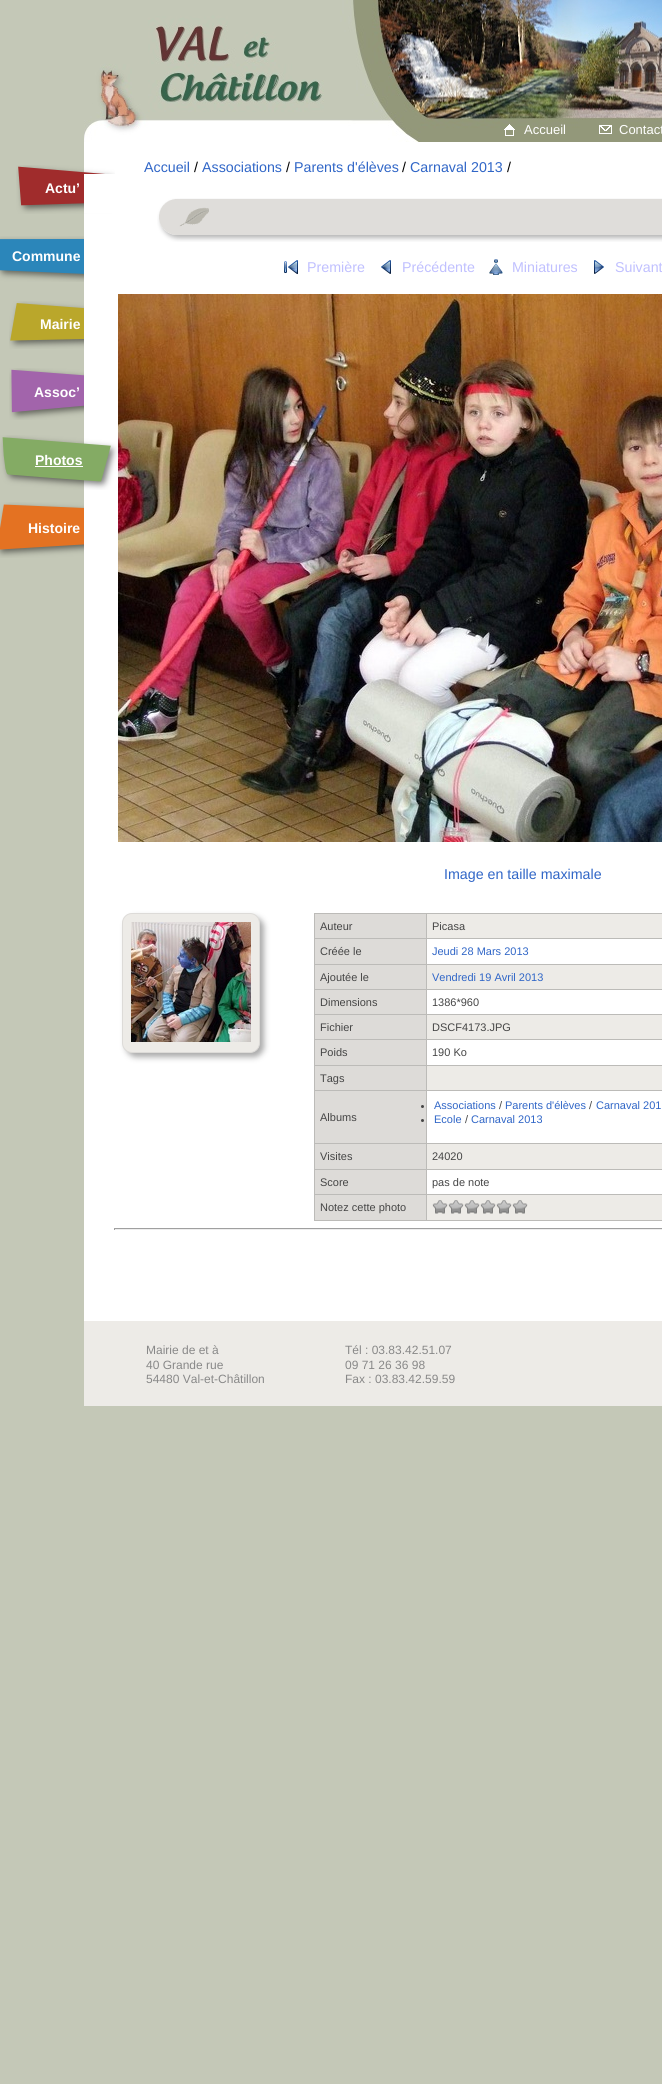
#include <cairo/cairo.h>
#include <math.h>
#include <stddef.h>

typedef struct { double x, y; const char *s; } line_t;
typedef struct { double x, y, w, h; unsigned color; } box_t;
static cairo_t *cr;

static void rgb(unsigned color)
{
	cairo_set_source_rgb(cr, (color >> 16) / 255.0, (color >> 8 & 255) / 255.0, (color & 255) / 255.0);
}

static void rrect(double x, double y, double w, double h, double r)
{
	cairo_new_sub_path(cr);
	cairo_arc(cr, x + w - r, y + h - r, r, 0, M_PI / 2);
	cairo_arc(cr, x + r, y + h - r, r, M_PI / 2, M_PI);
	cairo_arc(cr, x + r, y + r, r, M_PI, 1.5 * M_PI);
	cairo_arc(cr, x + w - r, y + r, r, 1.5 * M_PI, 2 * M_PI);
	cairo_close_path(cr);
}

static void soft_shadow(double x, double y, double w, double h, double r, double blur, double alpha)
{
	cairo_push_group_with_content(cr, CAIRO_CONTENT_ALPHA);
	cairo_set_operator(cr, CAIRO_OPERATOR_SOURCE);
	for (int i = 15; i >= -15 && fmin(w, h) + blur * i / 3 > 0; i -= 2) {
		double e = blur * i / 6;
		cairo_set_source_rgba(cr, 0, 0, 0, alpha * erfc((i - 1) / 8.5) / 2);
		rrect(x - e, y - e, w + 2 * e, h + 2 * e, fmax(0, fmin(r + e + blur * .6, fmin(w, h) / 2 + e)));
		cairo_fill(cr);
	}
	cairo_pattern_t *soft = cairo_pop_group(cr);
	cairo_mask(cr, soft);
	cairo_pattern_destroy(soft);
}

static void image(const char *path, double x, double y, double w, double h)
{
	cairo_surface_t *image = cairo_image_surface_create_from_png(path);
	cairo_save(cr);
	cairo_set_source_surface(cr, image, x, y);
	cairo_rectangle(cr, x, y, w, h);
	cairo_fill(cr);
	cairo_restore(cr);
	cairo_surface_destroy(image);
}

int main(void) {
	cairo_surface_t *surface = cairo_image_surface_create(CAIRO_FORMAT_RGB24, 662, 2084);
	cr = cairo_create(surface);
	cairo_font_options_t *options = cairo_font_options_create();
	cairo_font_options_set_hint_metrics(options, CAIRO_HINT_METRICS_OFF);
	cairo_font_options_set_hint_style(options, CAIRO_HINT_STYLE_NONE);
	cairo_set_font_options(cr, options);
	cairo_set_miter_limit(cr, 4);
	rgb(0xc4c8b7);
	cairo_paint(cr);
	rgb(0xffffff);
	cairo_rectangle(cr, 84, 142, 578, 1179);
	cairo_fill(cr);
	image("img/1.png", 84, 0, 578, 142);
	image("img/2.png", 504, 124, 11, 12);
	image("img/3.png", 599, 125, 13, 9);
	image("img/4.png", 16, 165, 99, 49);
	image("img/5.png", 0, 236, 84, 46);
	image("img/6.png", 9, 301, 75, 48);
	image("img/7.png", 9, 368, 75, 52);
	image("img/8.png", 0, 435, 118, 55);
	cairo_rectangle(cr, 35, 466, 48, 1);
	cairo_fill(cr);
	image("img/9.png", 0, 502, 84, 56);
	cairo_rectangle(cr, 84, 174, 31, 39);
	cairo_fill(cr);
	image("img/10.png", 157, 198, 505, 44);
	image("img/11.png", 284, 260, 14, 15);
	image("img/12.png", 381, 260, 10, 14);
	image("img/13.png", 489, 259, 14, 16);
	image("img/14.png", 594, 260, 10, 14);
	image("img/15.png", 118, 294, 544, 548);
	rgb(0xaaaaaa);
	soft_shadow(126, 917, 138, 140, 10, 3, 1);
	rgb(0xedebe7);
	rrect(122.5, 913.5, 137, 139, 9.5);
	cairo_fill_preserve(cr);
	rgb(0xdddbd8);
	cairo_set_line_width(cr, 1);
	cairo_stroke(cr);
	image("img/16.png", 131, 922, 120, 120);
	{
		static const box_t items[] = {
			{427, 914, 235, 24, 0xedebe7},
			{315, 914, 111, 24, 0xdddbd8},
			{426, 913, 236, 1, 0xbcbbb8},
			{426, 938, 236, 1, 0xbcbbb8},
			{426, 964, 236, 1, 0xbcbbb8},
			{426, 989, 236, 1, 0xbcbbb8},
			{426, 1014, 236, 1, 0xbcbbb8},
			{426, 1039, 236, 1, 0xbcbbb8},
			{426, 1065, 236, 1, 0xbcbbb8},
			{426, 1090, 236, 1, 0xbcbbb8},
			{426, 1143, 236, 1, 0xbcbbb8},
			{426, 1169, 236, 1, 0xbcbbb8},
			{426, 1194, 236, 1, 0xbcbbb8},
			{426, 1220, 236, 1, 0xbcbbb8},
			{426, 1194, 1, 27, 0xbcbbb8},
			{314, 1194, 113, 1, 0xbcbbb8},
			{426, 1169, 1, 26, 0xbcbbb8},
			{314, 1169, 113, 1, 0xbcbbb8},
			{426, 1143, 1, 27, 0xbcbbb8},
			{314, 1143, 113, 1, 0xbcbbb8},
			{426, 1090, 1, 54, 0xbcbbb8},
			{314, 1090, 113, 1, 0xbcbbb8},
			{426, 1065, 1, 26, 0xbcbbb8},
			{314, 1065, 113, 1, 0xbcbbb8},
			{426, 1039, 1, 27, 0xbcbbb8},
			{314, 1039, 113, 1, 0xbcbbb8},
			{426, 1014, 1, 26, 0xbcbbb8},
			{314, 1014, 113, 1, 0xbcbbb8},
			{426, 989, 1, 26, 0xbcbbb8},
			{314, 989, 113, 1, 0xbcbbb8},
			{426, 964, 1, 26, 0xbcbbb8},
			{314, 964, 113, 1, 0xbcbbb8},
			{426, 938, 1, 27, 0xbcbbb8},
			{314, 938, 113, 1, 0xbcbbb8},
			{426, 913, 1, 26, 0xbcbbb8},
			{314, 913, 113, 1, 0xbcbbb8},
			{314, 1220, 113, 1, 0xbcbbb8},
			{314, 1194, 1, 27, 0xbcbbb8},
			{314, 1169, 1, 26, 0xbcbbb8},
			{314, 1143, 1, 27, 0xbcbbb8},
			{314, 1090, 1, 54, 0xbcbbb8},
			{314, 1065, 1, 26, 0xbcbbb8},
			{314, 1039, 1, 27, 0xbcbbb8},
			{314, 1014, 1, 26, 0xbcbbb8},
			{314, 989, 1, 26, 0xbcbbb8},
			{314, 964, 1, 26, 0xbcbbb8},
			{314, 938, 1, 27, 0xbcbbb8},
			{314, 913, 1, 26, 0xbcbbb8},
			{315, 939, 111, 25, 0xdddbd8},
			{427, 965, 235, 24, 0xedebe7},
			{315, 965, 111, 24, 0xdddbd8},
			{315, 990, 111, 24, 0xdddbd8},
			{427, 1015, 235, 24, 0xedebe7},
			{315, 1015, 111, 24, 0xdddbd8},
			{315, 1040, 111, 25, 0xdddbd8},
			{427, 1066, 235, 24, 0xedebe7},
			{315, 1066, 111, 24, 0xdddbd8},
			{315, 1091, 111, 52, 0xdddbd8},
		};
		for (size_t i = 0; i < sizeof items / sizeof *items; i++) {
			rgb(items[i].color);
			cairo_rectangle(cr, items[i].x, items[i].y, items[i].w, items[i].h);
			cairo_fill(cr);
		}
	}
	rgb(0x454545);
	cairo_arc(cr, 422.5, 1106.5, 1.5, 0, 2 * M_PI);
	cairo_fill(cr);
	cairo_arc(cr, 422.5, 1120.5, 1.5, 0, 2 * M_PI);
	cairo_fill(cr);
	{
		static const box_t items[] = {
			{427, 1144, 235, 25, 0xedebe7},
			{315, 1144, 111, 25, 0xdddbd8},
			{315, 1170, 111, 24, 0xdddbd8},
			{427, 1195, 235, 25, 0xedebe7},
			{315, 1195, 111, 25, 0xdddbd8},
		};
		for (size_t i = 0; i < sizeof items / sizeof *items; i++) {
			rgb(items[i].color);
			cairo_rectangle(cr, items[i].x, items[i].y, items[i].w, items[i].h);
			cairo_fill(cr);
		}
	}
	image("img/17.png", 432, 1200, 16, 14);
	image("img/17.png", 448, 1200, 16, 14);
	image("img/17.png", 464, 1200, 16, 14);
	image("img/17.png", 480, 1200, 16, 14);
	image("img/17.png", 496, 1200, 16, 14);
	image("img/17.png", 512, 1200, 16, 14);
	{
		static const box_t items[] = {
			{114, 1228, 548, 1, 0x9f9f9f},
			{114, 1229, 548, 1, 0xeeeeee},
			{114, 1228, 1, 2, 0x9f9f9f},
			{84, 1321, 578, 85, 0xedebe7},
		};
		for (size_t i = 0; i < sizeof items / sizeof *items; i++) {
			rgb(items[i].color);
			cairo_rectangle(cr, items[i].x, items[i].y, items[i].w, items[i].h);
			cairo_fill(cr);
		}
	}
	cairo_select_font_face(cr, "Liberation Sans", CAIRO_FONT_SLANT_NORMAL, CAIRO_FONT_WEIGHT_NORMAL);
	cairo_set_font_size(cr, 13);
	rgb(0xffffff);
	cairo_move_to(cr, 524, 134);
	cairo_show_text(cr, "Accueil");
	cairo_move_to(cr, 619, 134);
	cairo_show_text(cr, "Contact");
	cairo_set_font_size(cr, 14.25);
	rgb(0x3066c7);
	cairo_move_to(cr, 144, 172);
	cairo_show_text(cr, "Accueil");
	rgb(0x000000);
	cairo_move_to(cr, 194, 172);
	cairo_show_text(cr, "/");
	rgb(0x3066c7);
	cairo_move_to(cr, 202, 172);
	cairo_show_text(cr, "Associations");
	rgb(0x000000);
	cairo_move_to(cr, 286, 172);
	cairo_show_text(cr, "/");
	rgb(0x3066c7);
	cairo_move_to(cr, 294, 172);
	cairo_show_text(cr, "Parents d'élèves");
	rgb(0x000000);
	cairo_move_to(cr, 402, 172);
	cairo_show_text(cr, "/");
	rgb(0x3066c7);
	cairo_move_to(cr, 410, 172);
	cairo_show_text(cr, "Carnaval 2013");
	rgb(0x000000);
	cairo_move_to(cr, 507, 172);
	cairo_show_text(cr, "/");
	cairo_select_font_face(cr, "Liberation Sans", CAIRO_FONT_SLANT_NORMAL, CAIRO_FONT_WEIGHT_BOLD);
	cairo_set_font_size(cr, 14);
	rgb(0xffffff);
	{
		static const line_t items[] = {
			{45, 193, "Actu’"},
			{12, 261, "Commune"},
			{40, 329, "Mairie"},
			{34, 397, "Assoc’"},
			{35, 465, "Photos"},
			{28, 533, "Histoire"},
		};
		for (size_t i = 0; i < sizeof items / sizeof *items; i++) {
			cairo_move_to(cr, items[i].x, items[i].y);
			cairo_show_text(cr, items[i].s);
		}
	}
	cairo_select_font_face(cr, "Liberation Sans", CAIRO_FONT_SLANT_NORMAL, CAIRO_FONT_WEIGHT_NORMAL);
	cairo_set_font_size(cr, 14.25);
	rgb(0xc0c0ff);
	{
		static const line_t items[] = {
			{307, 272, "Première"},
			{402, 272, "Précédente"},
			{512, 272, "Miniatures"},
			{615, 272, "Suivant"},
		};
		for (size_t i = 0; i < sizeof items / sizeof *items; i++) {
			cairo_move_to(cr, items[i].x, items[i].y);
			cairo_show_text(cr, items[i].s);
		}
	}
	rgb(0x3066c7);
	cairo_move_to(cr, 444, 879);
	cairo_show_text(cr, "Image en taille maximale");
	cairo_set_font_size(cr, 11);
	rgb(0x454545);
	{
		static const line_t items[] = {
			{320, 930, "Auteur"},
			{432, 930, "Picasa"},
			{320, 955, "Créée le"},
		};
		for (size_t i = 0; i < sizeof items / sizeof *items; i++) {
			cairo_move_to(cr, items[i].x, items[i].y);
			cairo_show_text(cr, items[i].s);
		}
	}
	rgb(0x3066c7);
	cairo_move_to(cr, 432, 955);
	cairo_show_text(cr, "Jeudi 28 Mars 2013");
	rgb(0x454545);
	cairo_move_to(cr, 320, 981);
	cairo_show_text(cr, "Ajoutée le");
	rgb(0x3066c7);
	cairo_move_to(cr, 432, 981);
	cairo_show_text(cr, "Vendredi 19 Avril 2013");
	rgb(0x454545);
	{
		static const line_t items[] = {
			{320, 1006, "Dimensions"},
			{432, 1006, "1386*960"},
			{320, 1031, "Fichier"},
			{432, 1031, "DSCF4173.JPG"},
			{320, 1056, "Poids"},
			{432, 1056, "190 Ko"},
			{320, 1082, "Tags"},
			{320, 1121, "Albums"},
		};
		for (size_t i = 0; i < sizeof items / sizeof *items; i++) {
			cairo_move_to(cr, items[i].x, items[i].y);
			cairo_show_text(cr, items[i].s);
		}
	}
	rgb(0x3066c7);
	cairo_move_to(cr, 434, 1109);
	cairo_show_text(cr, "Associations");
	rgb(0x454545);
	cairo_move_to(cr, 499, 1109);
	cairo_show_text(cr, "/");
	rgb(0x3066c7);
	cairo_move_to(cr, 505, 1109);
	cairo_show_text(cr, "Parents d'élèves");
	rgb(0x454545);
	cairo_move_to(cr, 589, 1109);
	cairo_show_text(cr, "/");
	rgb(0x3066c7);
	cairo_move_to(cr, 596, 1109);
	cairo_show_text(cr, "Carnaval 201");
	cairo_move_to(cr, 434, 1123);
	cairo_show_text(cr, "Ecole");
	rgb(0x454545);
	cairo_move_to(cr, 465, 1123);
	cairo_show_text(cr, "/");
	rgb(0x3066c7);
	cairo_move_to(cr, 471, 1123);
	cairo_show_text(cr, "Carnaval 2013");
	rgb(0x454545);
	{
		static const line_t items[] = {
			{320, 1160, "Visites"},
			{432, 1160, "24020"},
			{320, 1186, "Score"},
			{432, 1186, "pas de note"},
			{320, 1211, "Notez cette photo"},
		};
		for (size_t i = 0; i < sizeof items / sizeof *items; i++) {
			cairo_move_to(cr, items[i].x, items[i].y);
			cairo_show_text(cr, items[i].s);
		}
	}
	cairo_set_font_size(cr, 12);
	rgb(0x888888);
	{
		static const line_t items[] = {
			{146, 1354, "Mairie de et à"},
			{146, 1369, "40 Grande rue"},
			{146, 1383, "54480 Val-et-Châtillon"},
			{345, 1354, "Tél : 03.83.42.51.07"},
			{345, 1369, "09 71 26 36 98"},
			{345, 1383, "Fax : 03.83.42.59.59"},
		};
		for (size_t i = 0; i < sizeof items / sizeof *items; i++) {
			cairo_move_to(cr, items[i].x, items[i].y);
			cairo_show_text(cr, items[i].s);
		}
	}
	cairo_surface_write_to_png(surface, "page.png");
	cairo_font_options_destroy(options);
	cairo_destroy(cr);
	cairo_surface_destroy(surface);
	return 0;
}
